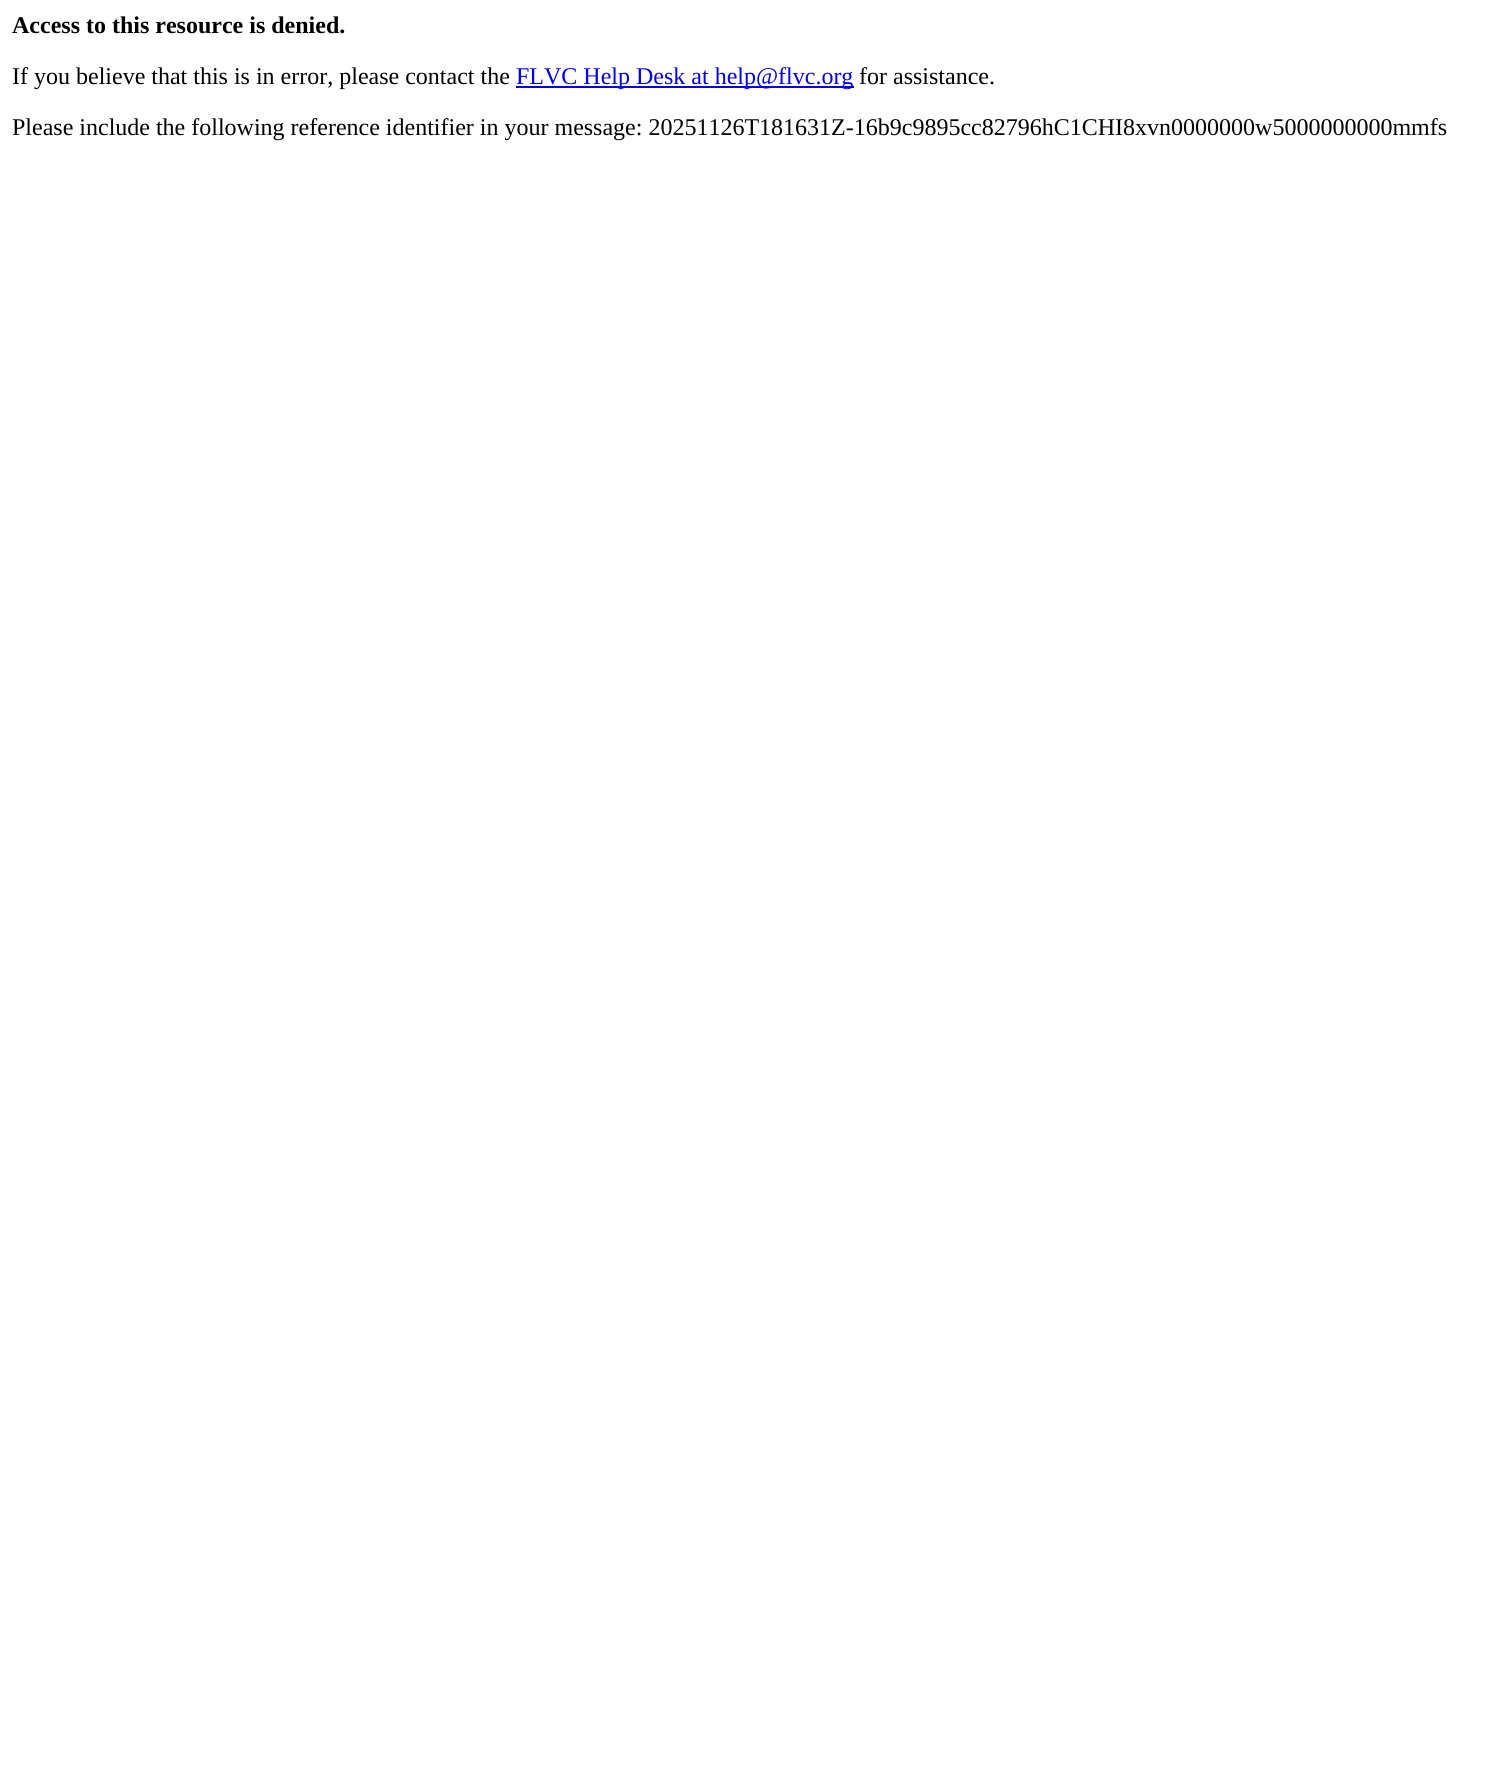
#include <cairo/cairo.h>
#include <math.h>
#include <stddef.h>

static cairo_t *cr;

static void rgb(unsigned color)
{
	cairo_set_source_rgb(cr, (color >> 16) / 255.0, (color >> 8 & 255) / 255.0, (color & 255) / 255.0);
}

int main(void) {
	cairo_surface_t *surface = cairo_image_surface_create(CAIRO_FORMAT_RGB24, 1504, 1772);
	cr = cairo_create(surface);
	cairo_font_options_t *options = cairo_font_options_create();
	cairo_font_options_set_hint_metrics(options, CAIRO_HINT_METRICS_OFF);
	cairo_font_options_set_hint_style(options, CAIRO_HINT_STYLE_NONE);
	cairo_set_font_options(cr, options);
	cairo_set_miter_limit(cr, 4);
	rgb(0xffffff);
	cairo_paint(cr);
	rgb(0x0000ee);
	cairo_rectangle(cr, 516, 86, 338, 2);
	cairo_fill(cr);
	cairo_select_font_face(cr, "Liberation Serif", CAIRO_FONT_SLANT_NORMAL, CAIRO_FONT_WEIGHT_BOLD);
	cairo_set_font_size(cr, 24);
	rgb(0x000000);
	cairo_move_to(cr, 12, 33);
	cairo_show_text(cr, "Access to this resource is denied.");
	cairo_select_font_face(cr, "Liberation Serif", CAIRO_FONT_SLANT_NORMAL, CAIRO_FONT_WEIGHT_NORMAL);
	cairo_move_to(cr, 12, 84);
	cairo_show_text(cr, "If you believe that this is in error, please contact the");
	rgb(0x0000ee);
	cairo_move_to(cr, 516, 84);
	cairo_show_text(cr, "FLVC Help Desk at help@flvc.org");
	rgb(0x000000);
	cairo_move_to(cr, 859, 84);
	cairo_show_text(cr, "for assistance.");
	cairo_move_to(cr, 12, 135);
	cairo_show_text(cr, "Please include the following reference identifier in your message: 20251126T181631Z-16b9c9895cc82796hC1CHI8xvn0000000w5000000000mmfs");
	cairo_surface_write_to_png(surface, "page.png");
	cairo_font_options_destroy(options);
	cairo_destroy(cr);
	cairo_surface_destroy(surface);
	return 0;
}
